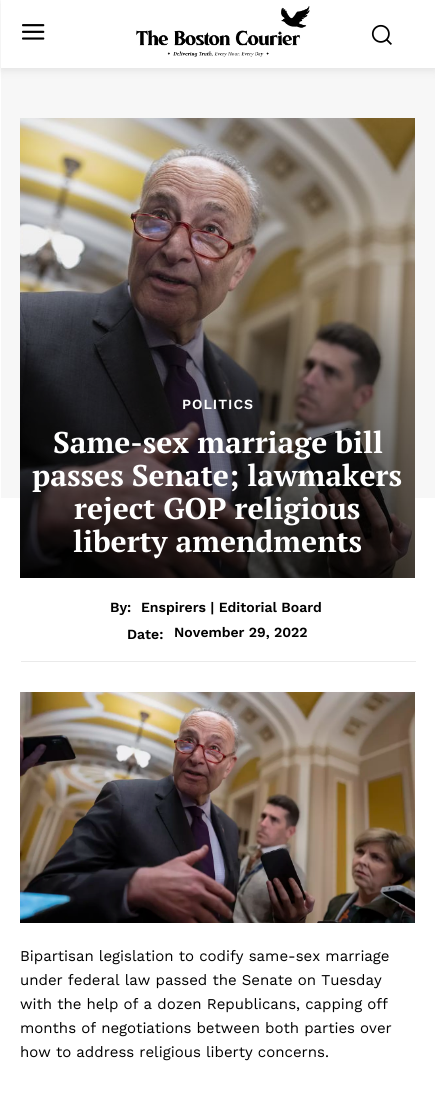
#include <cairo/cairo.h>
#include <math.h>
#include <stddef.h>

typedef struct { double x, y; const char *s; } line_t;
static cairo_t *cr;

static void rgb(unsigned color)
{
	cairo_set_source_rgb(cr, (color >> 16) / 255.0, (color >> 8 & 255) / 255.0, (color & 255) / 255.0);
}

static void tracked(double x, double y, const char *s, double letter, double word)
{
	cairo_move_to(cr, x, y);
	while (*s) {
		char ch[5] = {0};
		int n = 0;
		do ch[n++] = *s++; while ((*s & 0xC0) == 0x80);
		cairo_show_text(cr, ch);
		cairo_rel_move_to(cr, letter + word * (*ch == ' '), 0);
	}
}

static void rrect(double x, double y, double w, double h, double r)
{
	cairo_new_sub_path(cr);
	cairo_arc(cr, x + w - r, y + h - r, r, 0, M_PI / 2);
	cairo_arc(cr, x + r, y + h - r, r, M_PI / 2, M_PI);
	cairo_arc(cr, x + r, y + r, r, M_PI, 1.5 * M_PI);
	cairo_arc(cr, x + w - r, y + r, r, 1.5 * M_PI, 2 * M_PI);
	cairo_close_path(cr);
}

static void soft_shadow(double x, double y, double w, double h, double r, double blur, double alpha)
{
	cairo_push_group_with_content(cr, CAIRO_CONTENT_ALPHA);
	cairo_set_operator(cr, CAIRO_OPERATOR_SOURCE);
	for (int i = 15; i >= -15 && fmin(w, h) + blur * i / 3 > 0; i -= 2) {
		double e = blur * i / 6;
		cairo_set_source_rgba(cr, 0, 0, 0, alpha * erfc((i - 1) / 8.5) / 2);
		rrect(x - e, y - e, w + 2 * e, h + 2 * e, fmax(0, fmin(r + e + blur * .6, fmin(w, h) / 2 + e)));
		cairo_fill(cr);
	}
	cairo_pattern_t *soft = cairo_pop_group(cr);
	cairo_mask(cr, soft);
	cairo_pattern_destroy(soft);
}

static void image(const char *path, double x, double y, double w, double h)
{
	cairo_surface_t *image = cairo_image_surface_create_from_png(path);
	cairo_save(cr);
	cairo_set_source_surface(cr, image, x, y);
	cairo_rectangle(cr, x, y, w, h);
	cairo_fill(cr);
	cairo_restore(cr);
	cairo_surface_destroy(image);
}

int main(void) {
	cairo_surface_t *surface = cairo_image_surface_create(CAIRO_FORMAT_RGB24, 435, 1093);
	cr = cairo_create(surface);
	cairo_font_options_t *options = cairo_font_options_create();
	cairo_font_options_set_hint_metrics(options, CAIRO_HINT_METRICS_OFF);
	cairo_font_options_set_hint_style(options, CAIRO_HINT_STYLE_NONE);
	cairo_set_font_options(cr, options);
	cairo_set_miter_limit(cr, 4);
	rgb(0xffffff);
	cairo_paint(cr);
	image("img/1.png", 22, 24, 23, 16);
	image("img/2.png", 136, 6, 174, 51);
	image("img/3.png", 371, 24, 21, 21);
	rgb(0xf7f7f7);
	cairo_rectangle(cr, 1, 68, 434, 430);
	cairo_fill(cr);
	cairo_save(cr);
	cairo_set_fill_rule(cr, CAIRO_FILL_RULE_EVEN_ODD);
	cairo_new_path(cr);
	cairo_move_to(cr, 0, 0);
	cairo_line_to(cr, 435, 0);
	cairo_line_to(cr, 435, 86);
	cairo_line_to(cr, 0, 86);
	cairo_close_path(cr);
	cairo_move_to(cr, 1, 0);
	cairo_line_to(cr, 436, 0);
	cairo_line_to(cr, 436, 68);
	cairo_line_to(cr, 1, 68);
	cairo_close_path(cr);
	cairo_clip(cr);
	rgb(0x000000);
	soft_shadow(1, 2, 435, 68, 0, 5, 0.09);
	cairo_restore(cr);
	image("img/4.png", 20, 118, 395, 460);
	rgb(0xeaeaea);
	cairo_rectangle(cr, 21, 661, 395, 1);
	cairo_fill(cr);
	image("img/5.png", 20, 692, 395, 231);
	cairo_select_font_face(cr, "Work Sans SemiBold", CAIRO_FONT_SLANT_NORMAL, CAIRO_FONT_WEIGHT_NORMAL);
	cairo_set_font_size(cr, 14);
	rgb(0xffffff);
	tracked(182, 409, "POLITICS", 1, 0);
	cairo_select_font_face(cr, "PT Serif", CAIRO_FONT_SLANT_NORMAL, CAIRO_FONT_WEIGHT_BOLD);
	cairo_set_font_size(cr, 30);
	{
		static const line_t items[] = {
			{53, 453, "Same-sex marriage bill"},
			{32, 486, "passes Senate; lawmakers"},
			{74, 519, "reject GOP religious"},
			{73, 552, "liberty amendments"},
		};
		for (size_t i = 0; i < sizeof items / sizeof *items; i++) {
			cairo_move_to(cr, items[i].x, items[i].y);
			cairo_show_text(cr, items[i].s);
		}
	}
	cairo_select_font_face(cr, "Work Sans SemiBold", CAIRO_FONT_SLANT_NORMAL, CAIRO_FONT_WEIGHT_NORMAL);
	cairo_set_font_size(cr, 14);
	rgb(0x000000);
	{
		static const line_t items[] = {
			{110, 612, "By:"},
			{141, 612, "Enspirers | Editorial Board"},
			{127, 639, "Date:"},
			{174, 637, "November 29, 2022"},
		};
		for (size_t i = 0; i < sizeof items / sizeof *items; i++) {
			cairo_move_to(cr, items[i].x, items[i].y);
			cairo_show_text(cr, items[i].s);
		}
	}
	cairo_select_font_face(cr, "Work Sans", CAIRO_FONT_SLANT_NORMAL, CAIRO_FONT_WEIGHT_NORMAL);
	cairo_set_font_size(cr, 15);
	{
		static const line_t items[] = {
			{20, 961, "Bipartisan legislation to codify same-sex marriage"},
			{20, 985, "under federal law passed the Senate on Tuesday"},
			{20, 1009, "with the help of a dozen Republicans, capping off"},
			{20, 1033, "months of negotiations between both parties over"},
			{20, 1057, "how to address religious liberty concerns."},
		};
		for (size_t i = 0; i < sizeof items / sizeof *items; i++) {
			cairo_move_to(cr, items[i].x, items[i].y);
			cairo_show_text(cr, items[i].s);
		}
	}
	cairo_surface_write_to_png(surface, "page.png");
	cairo_font_options_destroy(options);
	cairo_destroy(cr);
	cairo_surface_destroy(surface);
	return 0;
}
